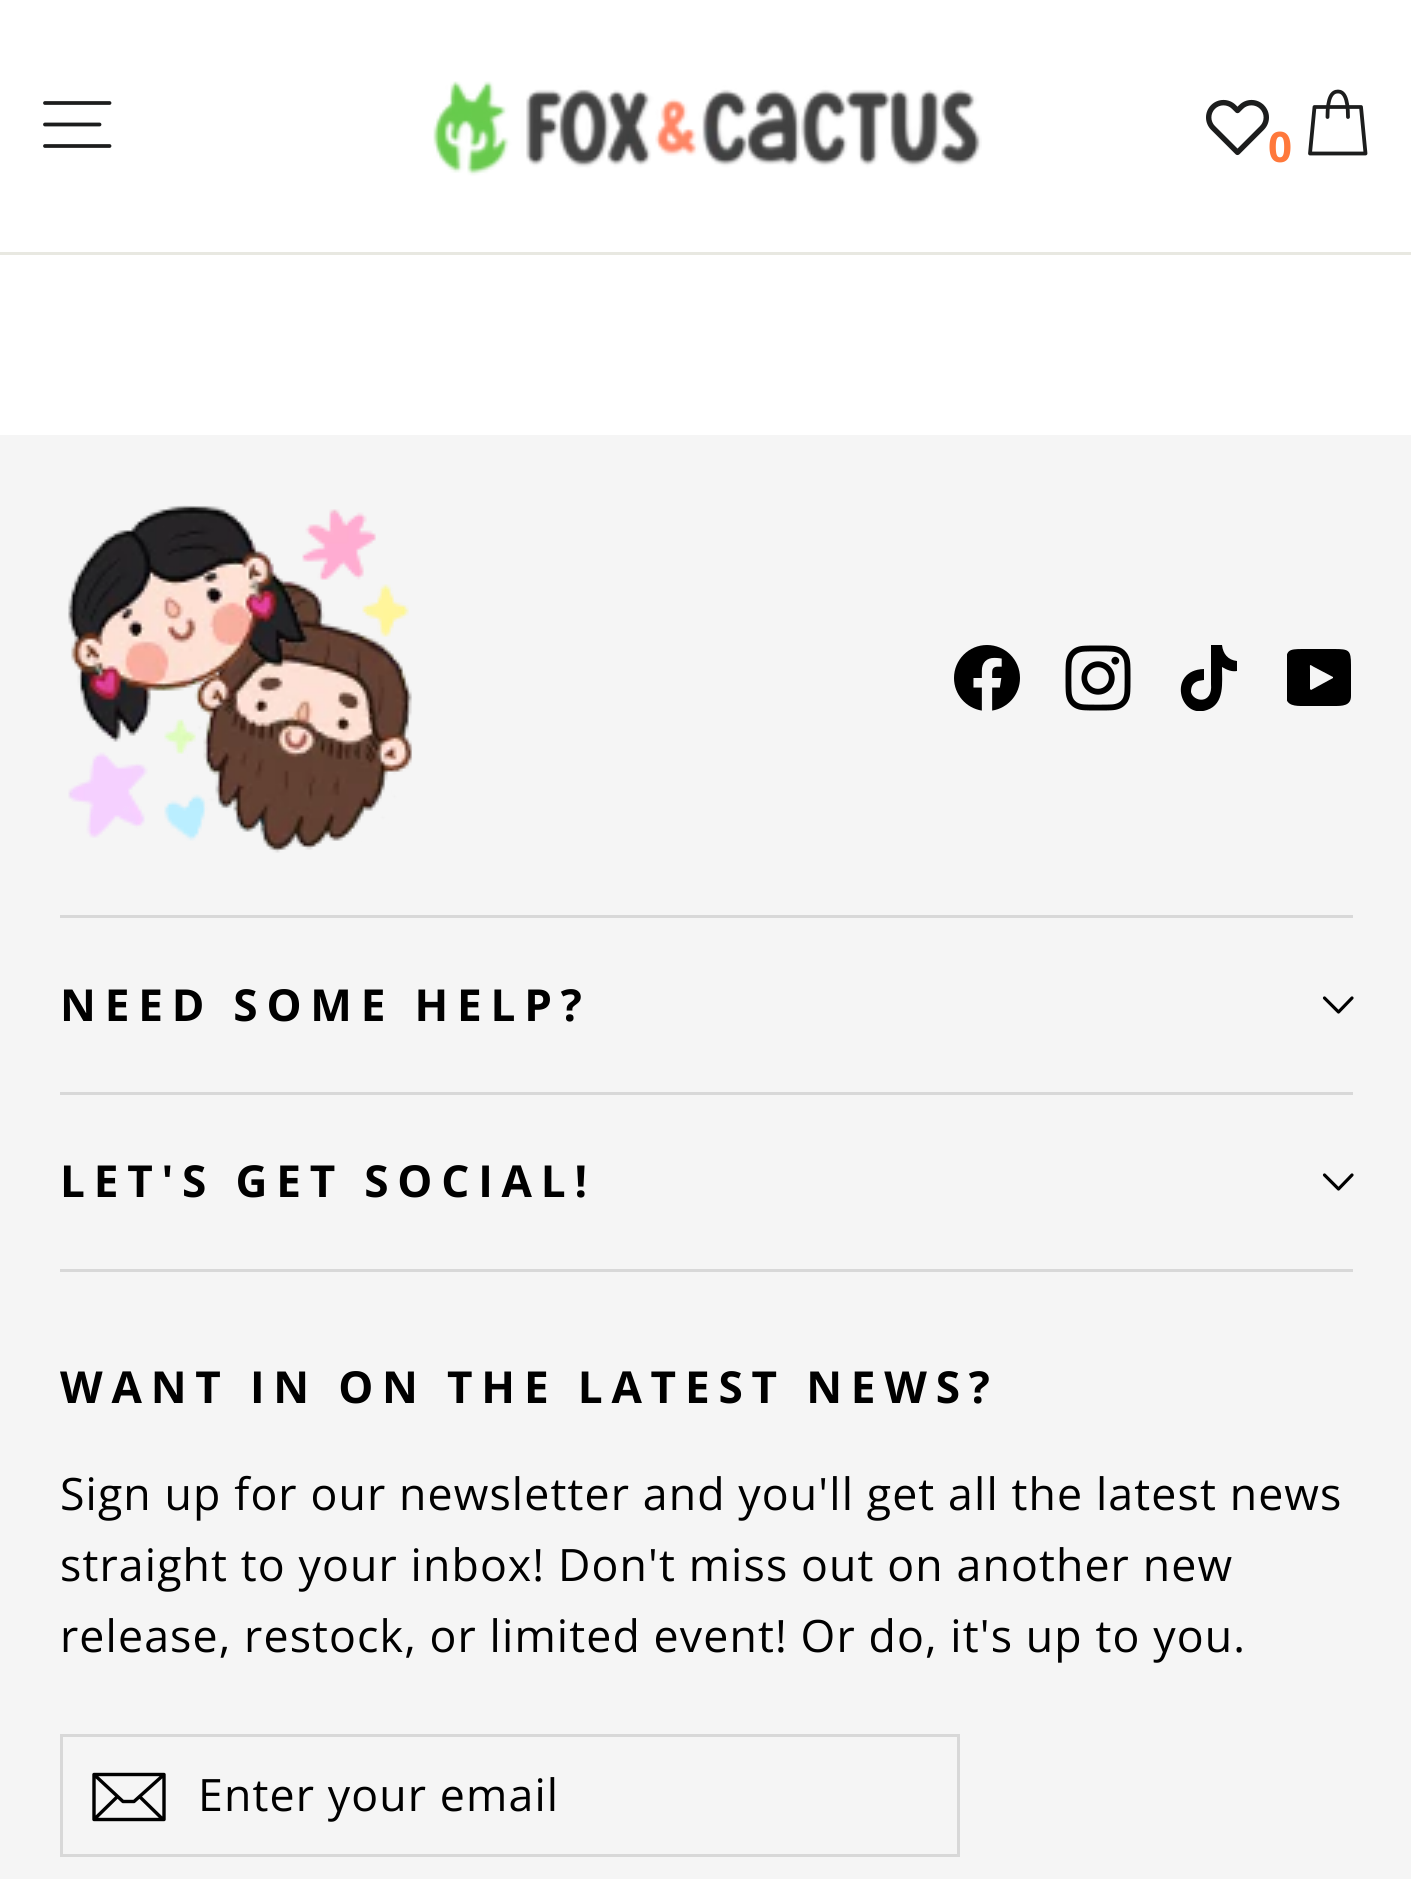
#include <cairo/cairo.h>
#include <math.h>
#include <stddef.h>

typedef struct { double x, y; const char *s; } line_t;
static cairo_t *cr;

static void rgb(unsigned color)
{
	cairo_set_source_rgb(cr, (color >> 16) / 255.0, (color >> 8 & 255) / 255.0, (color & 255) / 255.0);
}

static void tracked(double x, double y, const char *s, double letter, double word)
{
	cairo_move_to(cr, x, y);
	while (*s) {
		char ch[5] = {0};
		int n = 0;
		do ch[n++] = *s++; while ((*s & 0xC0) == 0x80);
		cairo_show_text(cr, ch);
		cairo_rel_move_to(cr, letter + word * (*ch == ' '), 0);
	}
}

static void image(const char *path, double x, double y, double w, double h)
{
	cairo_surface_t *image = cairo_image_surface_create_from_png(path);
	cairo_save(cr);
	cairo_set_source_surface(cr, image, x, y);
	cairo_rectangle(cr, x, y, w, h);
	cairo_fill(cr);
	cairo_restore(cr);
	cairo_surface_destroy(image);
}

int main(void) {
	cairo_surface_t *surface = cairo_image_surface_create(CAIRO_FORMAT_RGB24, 1411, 1879);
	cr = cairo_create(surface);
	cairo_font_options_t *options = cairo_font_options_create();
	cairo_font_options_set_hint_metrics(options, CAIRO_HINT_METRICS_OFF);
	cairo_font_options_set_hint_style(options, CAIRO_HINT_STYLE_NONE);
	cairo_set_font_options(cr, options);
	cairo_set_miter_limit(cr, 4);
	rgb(0xffffff);
	cairo_paint(cr);
	rgb(0xe8e8e1);
	cairo_rectangle(cr, 0, 252, 1411, 3);
	cairo_fill(cr);
	cairo_new_path(cr);
	cairo_move_to(cr, 45, 103);
	cairo_line_to(cr, 109.5, 103);
	cairo_move_to(cr, 45, 124.5);
	cairo_line_to(cr, 99.5, 124.5);
	cairo_move_to(cr, 45, 146);
	cairo_line_to(cr, 109.5, 146);
	rgb(0x1c1d1d);
	cairo_set_line_width(cr, 3.8);
	cairo_set_line_cap(cr, CAIRO_LINE_CAP_ROUND);
	cairo_set_line_join(cr, CAIRO_LINE_JOIN_ROUND);
	cairo_stroke(cr);
	image("img/1.png", 433, 81, 549, 95);
	image("img/2.png", 1206, 99, 63, 57);
	cairo_new_path(cr);
	cairo_move_to(cr, 1327.5, 117);
	cairo_curve_to(cr, 1327.5, 97, 1332, 91.5, 1338, 91.5);
	cairo_curve_to(cr, 1343.5, 91.5, 1348, 97, 1348, 117);
	cairo_stroke(cr);
	cairo_new_path(cr);
	cairo_move_to(cr, 1314.5, 107);
	cairo_line_to(cr, 1361, 107);
	cairo_line_to(cr, 1365.5, 153.5);
	cairo_line_to(cr, 1310, 153.5);
	cairo_close_path(cr);
	cairo_stroke(cr);
	rgb(0xf5f5f5);
	cairo_rectangle(cr, 0, 435, 1411, 1444);
	cairo_fill(cr);
	image("img/3.png", 68, 505, 345, 348);
	image("img/4.png", 954, 645, 66, 66);
	image("img/5.png", 1065, 645, 66, 66);
	cairo_save(cr);
	cairo_rectangle(cr, 1176, 645, 66, 66);
	cairo_clip(cr);
	rgb(0x000000);
	cairo_new_path(cr);
	cairo_move_to(cr, 1222, 645);
	cairo_curve_to(cr, 1223, 654, 1228, 660, 1237, 661);
	cairo_line_to(cr, 1237, 671);
	cairo_curve_to(cr, 1232, 672, 1227, 670, 1222, 667);
	cairo_curve_to(cr, 1222, 682, 1225, 704, 1207, 710);
	cairo_curve_to(cr, 1179, 720, 1167, 670, 1204, 669);
	cairo_line_to(cr, 1204, 680);
	cairo_line_to(cr, 1198, 681);
	cairo_curve_to(cr, 1193, 683, 1191, 686, 1191, 692);
	cairo_curve_to(cr, 1193, 702, 1213, 705, 1211, 684);
	cairo_line_to(cr, 1211, 645);
	cairo_close_path(cr);
	cairo_fill(cr);
	cairo_restore(cr);
	cairo_save(cr);
	cairo_rectangle(cr, 1287, 645, 66, 66);
	cairo_clip(cr);
	rgb(0x000000);
	cairo_new_path(cr);
	cairo_move_to(cr, 1286, 696);
	cairo_curve_to(cr, 1286, 706, 1296, 706, 1303, 706);
	cairo_line_to(cr, 1334, 706);
	cairo_curve_to(cr, 1342, 706, 1351, 706, 1351, 696);
	cairo_line_to(cr, 1351, 665);
	cairo_curve_to(cr, 1351, 650, 1349, 649, 1334, 649);
	cairo_line_to(cr, 1303, 649);
	cairo_curve_to(cr, 1288, 649, 1286, 650, 1286, 665);
	cairo_close_path(cr);
	cairo_move_to(cr, 1310, 689);
	cairo_line_to(cr, 1310, 670);
	cairo_curve_to(cr, 1310, 664, 1309, 664, 1314, 667);
	cairo_line_to(cr, 1333, 677);
	cairo_line_to(cr, 1333, 678);
	cairo_line_to(cr, 1311, 690);
	cairo_close_path(cr);
	cairo_fill(cr);
	cairo_restore(cr);
	rgb(0xd8d8d8);
	cairo_rectangle(cr, 60, 915, 1293, 3);
	cairo_fill(cr);
	cairo_new_path(cr);
	cairo_move_to(cr, 1324.5, 998);
	cairo_line_to(cr, 1338.5, 1012);
	cairo_line_to(cr, 1352, 998);
	rgb(0x000000);
	cairo_set_line_width(cr, 3.2);
	cairo_stroke(cr);
	rgb(0xd8d8d8);
	cairo_rectangle(cr, 60, 1092, 1293, 3);
	cairo_fill(cr);
	cairo_new_path(cr);
	cairo_move_to(cr, 1324.5, 1175);
	cairo_line_to(cr, 1338.5, 1189);
	cairo_line_to(cr, 1352, 1175);
	rgb(0x000000);
	cairo_stroke(cr);
	rgb(0xd8d8d8);
	cairo_rectangle(cr, 60, 1269, 1293, 3);
	cairo_fill(cr);
	cairo_rectangle(cr, 61.5, 1735.5, 897, 120);
	cairo_set_line_width(cr, 3);
	cairo_set_line_cap(cr, CAIRO_LINE_CAP_BUTT);
	cairo_set_line_join(cr, CAIRO_LINE_JOIN_MITER);
	cairo_stroke(cr);
	cairo_new_path(cr);
	cairo_move_to(cr, 164, 1819.5);
	cairo_line_to(cr, 94, 1819.5);
	cairo_line_to(cr, 94, 1774.5);
	cairo_line_to(cr, 164, 1774.5);
	cairo_close_path(cr);
	cairo_move_to(cr, 94, 1774.5);
	cairo_line_to(cr, 123, 1801.5);
	cairo_line_to(cr, 134, 1801.5);
	cairo_line_to(cr, 164, 1774.5);
	cairo_move_to(cr, 117.5, 1796.5);
	cairo_line_to(cr, 95, 1818.5);
	cairo_move_to(cr, 163, 1819.5);
	cairo_line_to(cr, 139.5, 1796.5);
	rgb(0x000000);
	cairo_set_line_width(cr, 3.4);
	cairo_set_line_cap(cr, CAIRO_LINE_CAP_ROUND);
	cairo_set_line_join(cr, CAIRO_LINE_JOIN_ROUND);
	cairo_stroke(cr);
	cairo_select_font_face(cr, "Open Sans", CAIRO_FONT_SLANT_NORMAL, CAIRO_FONT_WEIGHT_BOLD);
	cairo_set_font_size(cr, 42);
	rgb(0xff783b);
	tracked(1268, 162, "0", 1, 0);
	cairo_set_font_size(cr, 44.1);
	rgb(0x000000);
	{
		static const line_t items[] = {
			{60, 1021, "NEED SOME HELP?"},
			{60, 1197, "LET'S GET SOCIAL!"},
			{60, 1403, "WANT IN ON THE LATEST NEWS?"},
		};
		for (size_t i = 0; i < sizeof items / sizeof *items; i++) {
			tracked(items[i].x, items[i].y, items[i].s, 8.8, 0);
		}
	}
	cairo_select_font_face(cr, "Open Sans", CAIRO_FONT_SLANT_NORMAL, CAIRO_FONT_WEIGHT_NORMAL);
	cairo_set_font_size(cr, 44.65);
	{
		static const line_t items[] = {
			{60, 1510, "Sign up for our newsletter and you'll get all the latest news"},
			{60, 1581, "straight to your inbox! Don't miss out on another new"},
			{60, 1652, "release, restock, or limited event! Or do, it's up to you."},
			{198, 1811, "Enter your email"},
		};
		for (size_t i = 0; i < sizeof items / sizeof *items; i++) {
			tracked(items[i].x, items[i].y, items[i].s, 1.12, 0);
		}
	}
	cairo_surface_write_to_png(surface, "page.png");
	cairo_font_options_destroy(options);
	cairo_destroy(cr);
	cairo_surface_destroy(surface);
	return 0;
}
